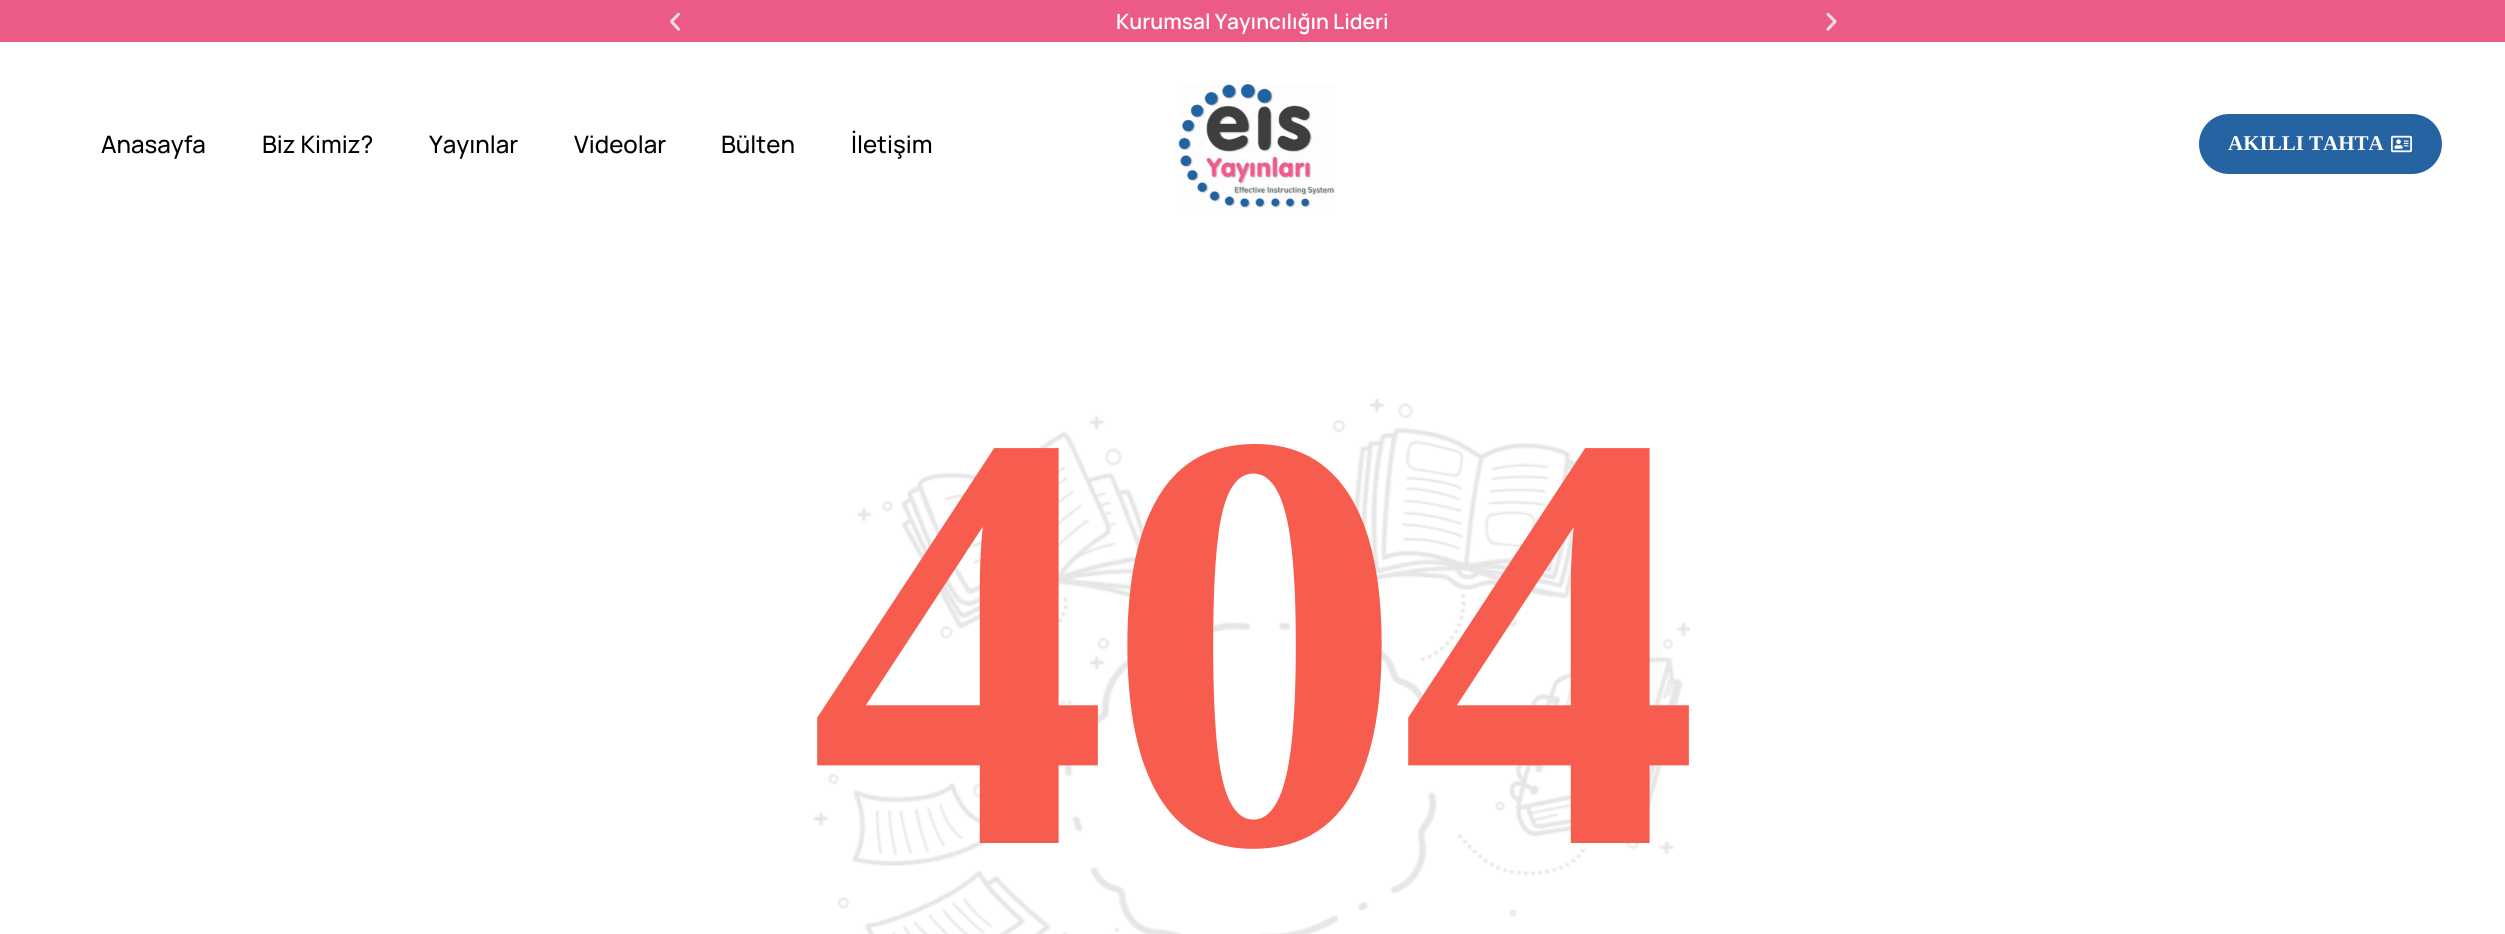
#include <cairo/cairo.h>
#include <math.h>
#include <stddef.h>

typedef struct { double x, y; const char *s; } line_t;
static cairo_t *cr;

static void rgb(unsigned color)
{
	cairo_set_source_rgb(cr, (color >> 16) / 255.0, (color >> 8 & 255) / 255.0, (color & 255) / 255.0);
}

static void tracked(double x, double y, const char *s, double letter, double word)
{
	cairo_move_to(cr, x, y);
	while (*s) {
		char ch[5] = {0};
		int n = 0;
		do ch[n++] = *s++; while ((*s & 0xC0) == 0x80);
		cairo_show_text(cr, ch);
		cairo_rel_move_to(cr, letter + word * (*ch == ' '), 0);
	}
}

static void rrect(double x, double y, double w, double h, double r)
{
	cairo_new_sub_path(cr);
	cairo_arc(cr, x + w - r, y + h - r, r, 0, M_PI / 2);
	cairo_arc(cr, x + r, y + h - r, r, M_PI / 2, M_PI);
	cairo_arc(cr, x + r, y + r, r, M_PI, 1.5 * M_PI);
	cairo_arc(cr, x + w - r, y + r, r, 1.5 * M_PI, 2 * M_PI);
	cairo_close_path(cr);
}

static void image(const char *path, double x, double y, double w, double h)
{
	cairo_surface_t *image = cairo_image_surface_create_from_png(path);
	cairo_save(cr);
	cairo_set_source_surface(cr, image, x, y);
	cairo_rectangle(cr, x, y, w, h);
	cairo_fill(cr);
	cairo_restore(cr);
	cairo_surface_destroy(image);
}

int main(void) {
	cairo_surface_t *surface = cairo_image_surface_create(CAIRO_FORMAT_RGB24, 2505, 934);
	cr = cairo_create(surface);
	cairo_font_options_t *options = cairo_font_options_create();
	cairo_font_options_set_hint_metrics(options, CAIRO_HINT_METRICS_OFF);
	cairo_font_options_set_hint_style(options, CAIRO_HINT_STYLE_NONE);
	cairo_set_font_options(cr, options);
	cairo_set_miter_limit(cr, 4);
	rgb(0xffffff);
	cairo_paint(cr);
	rgb(0xec5b86);
	cairo_rectangle(cr, 0, 0, 2505, 42);
	cairo_fill(cr);
	image("img/1.png", 670, 12, 11, 19);
	image("img/2.png", 1826, 12, 11, 19);
	image("img/3.png", 1178, 84, 157, 125);
	rgb(0x2663a2);
	rrect(2199, 114, 243, 60, 30);
	cairo_fill(cr);
	image("img/4.png", 2391, 135, 21, 18);
	image("img/5.png", 814, 399, 876, 535);
	cairo_select_font_face(cr, "Manrope SemiBold", CAIRO_FONT_SLANT_NORMAL, CAIRO_FONT_WEIGHT_NORMAL);
	cairo_set_font_size(cr, 21);
	rgb(0xffffff);
	cairo_move_to(cr, 1116, 29);
	cairo_show_text(cr, "Kurumsal Yayıncılığın Lideri");
	cairo_select_font_face(cr, "Manrope Medium", CAIRO_FONT_SLANT_NORMAL, CAIRO_FONT_WEIGHT_NORMAL);
	cairo_set_font_size(cr, 24);
	rgb(0x000000);
	{
		static const line_t items[] = {
			{101, 153, "Anasayfa"},
			{262, 153, "Biz Kimiz?"},
			{429, 153, "Yayınlar"},
			{574, 153, "Videolar"},
			{721, 153, "Bülten"},
			{851, 153, "İletişim"},
		};
		for (size_t i = 0; i < sizeof items / sizeof *items; i++) {
			cairo_move_to(cr, items[i].x, items[i].y);
			cairo_show_text(cr, items[i].s);
		}
	}
	cairo_select_font_face(cr, "Liberation Serif", CAIRO_FONT_SLANT_NORMAL, CAIRO_FONT_WEIGHT_BOLD);
	cairo_set_font_size(cr, 21);
	rgb(0xffffff);
	cairo_move_to(cr, 2228, 150);
	cairo_show_text(cr, "AKILLI TAHTA");
	cairo_set_font_size(cr, 600);
	rgb(0xf65d4e);
	tracked(809, 843, "404", -4.5, 0);
	cairo_surface_write_to_png(surface, "page.png");
	cairo_font_options_destroy(options);
	cairo_destroy(cr);
	cairo_surface_destroy(surface);
	return 0;
}
